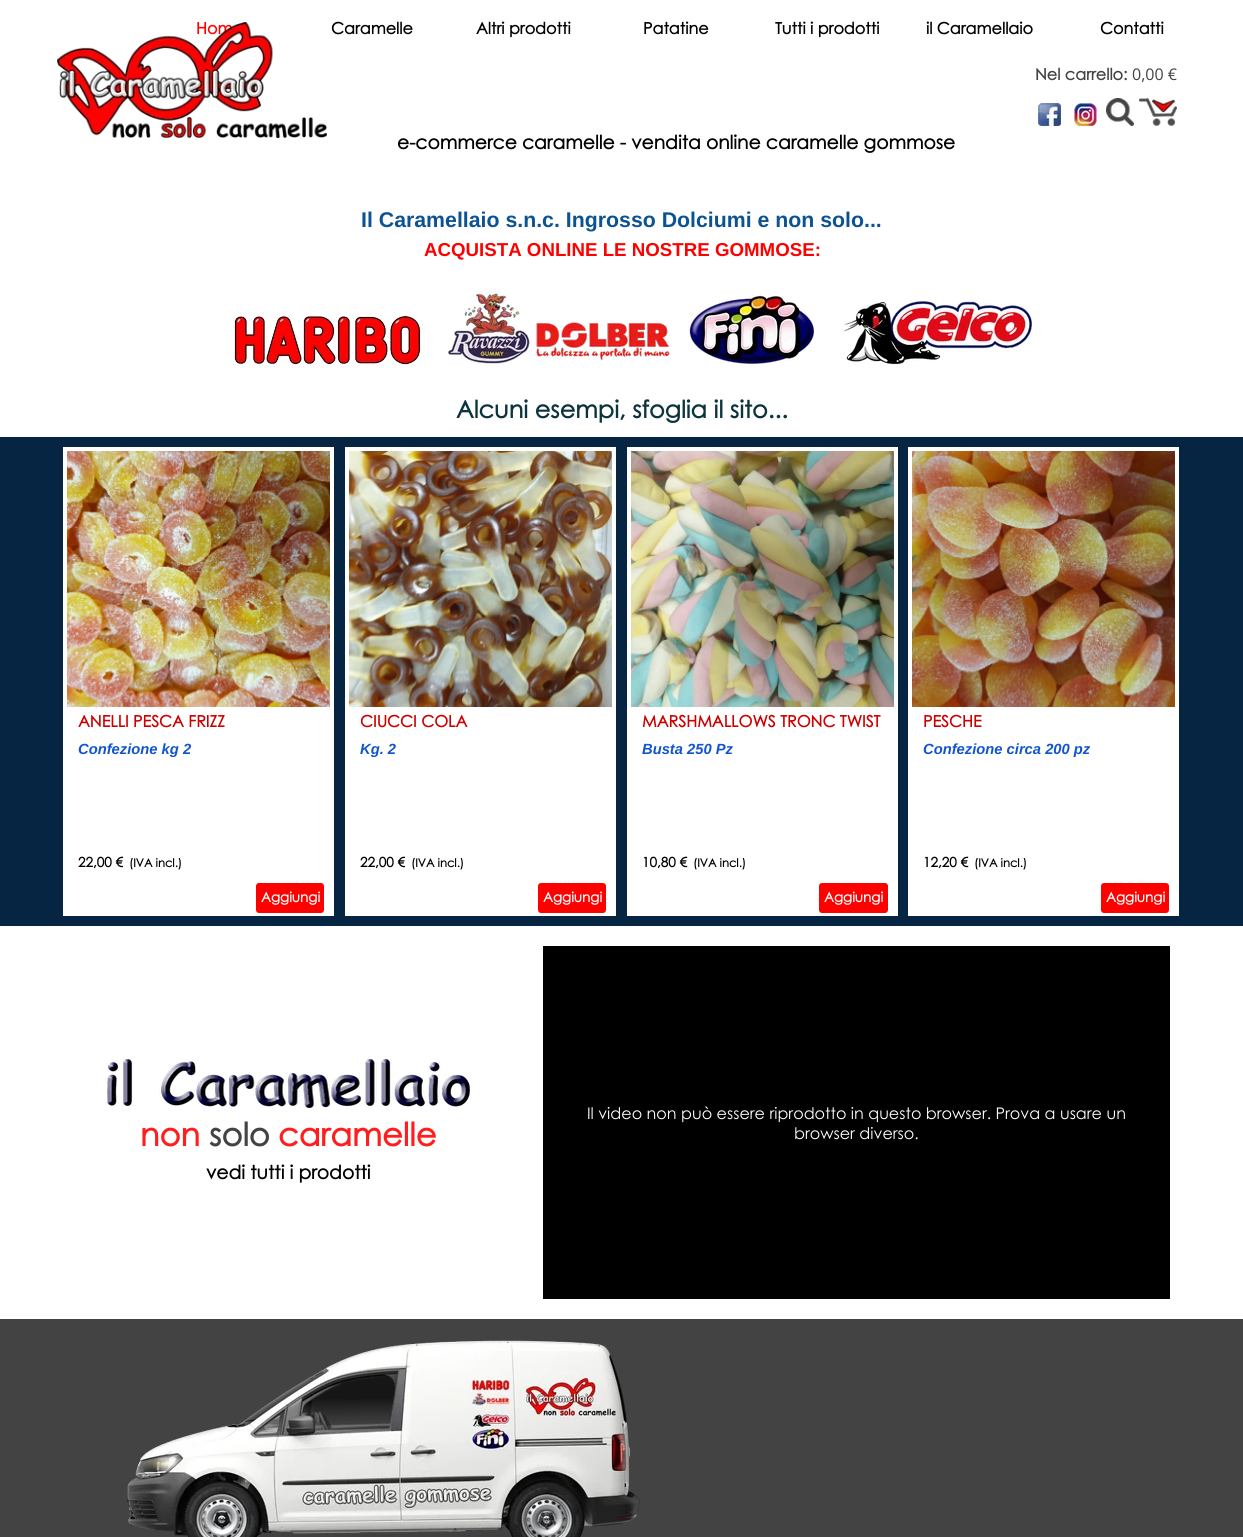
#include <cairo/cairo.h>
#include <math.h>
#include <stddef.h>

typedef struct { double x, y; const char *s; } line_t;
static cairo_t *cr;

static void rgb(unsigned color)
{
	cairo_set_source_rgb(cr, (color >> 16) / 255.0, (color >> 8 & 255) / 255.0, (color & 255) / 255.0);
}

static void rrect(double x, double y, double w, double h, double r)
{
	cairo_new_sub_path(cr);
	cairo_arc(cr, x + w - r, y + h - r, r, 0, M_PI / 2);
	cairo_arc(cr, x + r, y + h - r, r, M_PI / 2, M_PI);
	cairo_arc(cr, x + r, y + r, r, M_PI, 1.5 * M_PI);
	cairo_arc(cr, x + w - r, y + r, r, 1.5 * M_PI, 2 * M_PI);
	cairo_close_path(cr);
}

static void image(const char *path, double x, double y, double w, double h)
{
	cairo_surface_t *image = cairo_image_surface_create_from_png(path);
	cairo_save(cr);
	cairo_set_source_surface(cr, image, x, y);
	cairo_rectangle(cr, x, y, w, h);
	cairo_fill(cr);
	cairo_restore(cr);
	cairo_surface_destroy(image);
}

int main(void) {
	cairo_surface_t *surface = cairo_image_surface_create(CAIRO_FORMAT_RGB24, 1243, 1537);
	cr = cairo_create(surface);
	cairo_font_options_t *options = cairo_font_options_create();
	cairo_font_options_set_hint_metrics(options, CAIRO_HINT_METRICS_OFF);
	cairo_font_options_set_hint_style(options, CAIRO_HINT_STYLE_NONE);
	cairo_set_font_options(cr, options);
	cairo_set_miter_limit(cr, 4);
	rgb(0xffffff);
	cairo_paint(cr);
	image("img/2.png", 1038, 103, 23, 23);
	image("img/3.png", 1074, 103, 23, 23);
	image("img/4.png", 1106, 98, 28, 28);
	image("img/5.png", 1139, 98, 38, 28);
	image("img/6.png", 234, 315, 187, 50);
	image("img/7.png", 448, 292, 222, 72);
	image("img/8.png", 688, 295, 126, 69);
	image("img/9.png", 843, 301, 189, 64);
	rgb(0x052543);
	cairo_rectangle(cr, 0, 437, 1243, 489);
	cairo_fill(cr);
	rgb(0xffffff);
	cairo_rectangle(cr, 63, 447, 271, 469);
	cairo_fill(cr);
	image("img/10.png", 67, 451, 263, 256);
	rgb(0xff0000);
	rrect(256, 883, 68, 30, 3);
	cairo_fill(cr);
	rgb(0xffffff);
	cairo_rectangle(cr, 345, 447, 271, 469);
	cairo_fill(cr);
	image("img/11.png", 349, 451, 263, 256);
	rgb(0xff0000);
	rrect(538, 883, 68, 30, 3);
	cairo_fill(cr);
	rgb(0xffffff);
	cairo_rectangle(cr, 627, 447, 271, 469);
	cairo_fill(cr);
	image("img/12.png", 631, 451, 263, 256);
	rgb(0xff0000);
	rrect(819, 883, 69, 30, 3);
	cairo_fill(cr);
	rgb(0xffffff);
	cairo_rectangle(cr, 908, 447, 271, 469);
	cairo_fill(cr);
	image("img/13.png", 912, 451, 263, 256);
	rgb(0xff0000);
	rrect(1101, 883, 68, 30, 3);
	cairo_fill(cr);
	image("img/14.png", 107, 1059, 363, 49);
	rgb(0x000000);
	cairo_rectangle(cr, 543, 946, 627, 353);
	cairo_fill(cr);
	rgb(0x434343);
	cairo_rectangle(cr, 0, 1319, 1243, 218);
	cairo_fill(cr);
	image("img/15.png", 127, 1340, 513, 197);
	cairo_select_font_face(cr, "Century Gothic", CAIRO_FONT_SLANT_NORMAL, CAIRO_FONT_WEIGHT_BOLD);
	cairo_set_font_size(cr, 16);
	rgb(0xff0000);
	cairo_move_to(cr, 196, 34);
	cairo_show_text(cr, "Hom");
	image("img/1.png", 57, 22, 270, 116);
	rgb(0x000000);
	{
		static const line_t items[] = {
			{331, 34, "Caramelle"},
			{476, 34, "Altri prodotti"},
			{643, 34, "Patatine"},
			{775, 34, "Tutti i prodotti"},
			{926, 34, "il Caramellaio"},
			{1100, 34, "Contatti"},
		};
		for (size_t i = 0; i < sizeof items / sizeof *items; i++) {
			cairo_move_to(cr, items[i].x, items[i].y);
			cairo_show_text(cr, items[i].s);
		}
	}
	rgb(0x434343);
	cairo_move_to(cr, 1035, 80);
	cairo_show_text(cr, "Nel carrello:");
	cairo_select_font_face(cr, "Open Sans", CAIRO_FONT_SLANT_NORMAL, CAIRO_FONT_WEIGHT_NORMAL);
	cairo_move_to(cr, 1132, 80);
	cairo_show_text(cr, "0,00 €");
	cairo_select_font_face(cr, "Century Gothic", CAIRO_FONT_SLANT_NORMAL, CAIRO_FONT_WEIGHT_BOLD);
	cairo_set_font_size(cr, 18.7);
	rgb(0x000000);
	cairo_move_to(cr, 397, 149);
	cairo_show_text(cr, "e-commerce caramelle - vendita online caramelle gommose");
	cairo_select_font_face(cr, "Liberation Sans", CAIRO_FONT_SLANT_NORMAL, CAIRO_FONT_WEIGHT_BOLD);
	cairo_set_font_size(cr, 21.3);
	rgb(0x0b5394);
	cairo_move_to(cr, 361, 227);
	cairo_show_text(cr, "Il Caramellaio s.n.c. Ingrosso Dolciumi e non solo...");
	cairo_set_font_size(cr, 18.7);
	rgb(0xff0000);
	cairo_move_to(cr, 424, 256);
	cairo_show_text(cr, "ACQUISTA ONLINE LE NOSTRE GOMMOSE:");
	cairo_select_font_face(cr, "Century Gothic", CAIRO_FONT_SLANT_NORMAL, CAIRO_FONT_WEIGHT_BOLD);
	cairo_set_font_size(cr, 24);
	rgb(0x0c343d);
	cairo_move_to(cr, 456, 418);
	cairo_show_text(cr, "Alcuni esempi, sfoglia il sito...");
	cairo_set_font_size(cr, 16);
	rgb(0xcc0000);
	cairo_move_to(cr, 78, 727);
	cairo_show_text(cr, "ANELLI PESCA FRIZZ");
	cairo_select_font_face(cr, "Liberation Sans", CAIRO_FONT_SLANT_ITALIC, CAIRO_FONT_WEIGHT_BOLD);
	cairo_set_font_size(cr, 14.75);
	rgb(0x1155cc);
	cairo_move_to(cr, 78, 754);
	cairo_show_text(cr, "Confezione kg 2");
	cairo_select_font_face(cr, "Century Gothic", CAIRO_FONT_SLANT_NORMAL, CAIRO_FONT_WEIGHT_BOLD);
	cairo_set_font_size(cr, 13.5);
	rgb(0x000000);
	cairo_move_to(cr, 78, 867);
	cairo_show_text(cr, "22,00 €");
	cairo_set_font_size(cr, 11.5);
	cairo_move_to(cr, 129, 867);
	cairo_show_text(cr, "(IVA incl.)");
	cairo_set_font_size(cr, 13.5);
	rgb(0xffffff);
	cairo_move_to(cr, 261, 902);
	cairo_show_text(cr, "Aggiungi");
	cairo_set_font_size(cr, 16);
	rgb(0xcc0000);
	cairo_move_to(cr, 360, 727);
	cairo_show_text(cr, "CIUCCI COLA");
	cairo_select_font_face(cr, "Liberation Sans", CAIRO_FONT_SLANT_ITALIC, CAIRO_FONT_WEIGHT_BOLD);
	cairo_set_font_size(cr, 14.75);
	rgb(0x1155cc);
	cairo_move_to(cr, 360, 754);
	cairo_show_text(cr, "Kg. 2");
	cairo_select_font_face(cr, "Century Gothic", CAIRO_FONT_SLANT_NORMAL, CAIRO_FONT_WEIGHT_BOLD);
	cairo_set_font_size(cr, 13.5);
	rgb(0x000000);
	cairo_move_to(cr, 360, 867);
	cairo_show_text(cr, "22,00 €");
	cairo_set_font_size(cr, 11.5);
	cairo_move_to(cr, 411, 867);
	cairo_show_text(cr, "(IVA incl.)");
	cairo_set_font_size(cr, 13.5);
	rgb(0xffffff);
	cairo_move_to(cr, 543, 902);
	cairo_show_text(cr, "Aggiungi");
	cairo_set_font_size(cr, 16);
	rgb(0xcc0000);
	cairo_move_to(cr, 642, 727);
	cairo_show_text(cr, "MARSHMALLOWS TRONC TWIST");
	cairo_select_font_face(cr, "Liberation Sans", CAIRO_FONT_SLANT_ITALIC, CAIRO_FONT_WEIGHT_BOLD);
	cairo_set_font_size(cr, 14.75);
	rgb(0x1155cc);
	cairo_move_to(cr, 642, 754);
	cairo_show_text(cr, "Busta 250 Pz");
	cairo_select_font_face(cr, "Century Gothic", CAIRO_FONT_SLANT_NORMAL, CAIRO_FONT_WEIGHT_BOLD);
	cairo_set_font_size(cr, 13.5);
	rgb(0x000000);
	cairo_move_to(cr, 642, 867);
	cairo_show_text(cr, "10,80 €");
	cairo_set_font_size(cr, 11.5);
	cairo_move_to(cr, 693, 867);
	cairo_show_text(cr, "(IVA incl.)");
	cairo_set_font_size(cr, 13.5);
	rgb(0xffffff);
	cairo_move_to(cr, 824, 902);
	cairo_show_text(cr, "Aggiungi");
	cairo_set_font_size(cr, 16);
	rgb(0xcc0000);
	cairo_move_to(cr, 923, 727);
	cairo_show_text(cr, "PESCHE");
	cairo_select_font_face(cr, "Liberation Sans", CAIRO_FONT_SLANT_ITALIC, CAIRO_FONT_WEIGHT_BOLD);
	cairo_set_font_size(cr, 14.75);
	rgb(0x1155cc);
	cairo_move_to(cr, 923, 754);
	cairo_show_text(cr, "Confezione circa 200 pz");
	cairo_select_font_face(cr, "Century Gothic", CAIRO_FONT_SLANT_NORMAL, CAIRO_FONT_WEIGHT_BOLD);
	cairo_set_font_size(cr, 13.5);
	rgb(0x000000);
	cairo_move_to(cr, 923, 867);
	cairo_show_text(cr, "12,20 €");
	cairo_set_font_size(cr, 11.5);
	cairo_move_to(cr, 974, 867);
	cairo_show_text(cr, "(IVA incl.)");
	cairo_set_font_size(cr, 13.5);
	rgb(0xffffff);
	cairo_move_to(cr, 1106, 902);
	cairo_show_text(cr, "Aggiungi");
	cairo_set_font_size(cr, 32);
	rgb(0xff1d1d);
	cairo_move_to(cr, 140, 1146);
	cairo_show_text(cr, "non");
	rgb(0x434343);
	cairo_move_to(cr, 209, 1146);
	cairo_show_text(cr, "solo");
	rgb(0xff1d1d);
	cairo_move_to(cr, 278, 1146);
	cairo_show_text(cr, "caramelle");
	cairo_set_font_size(cr, 18.7);
	rgb(0x000000);
	cairo_move_to(cr, 206, 1179);
	cairo_show_text(cr, "vedi tutti i prodotti");
	cairo_select_font_face(cr, "Century Gothic", CAIRO_FONT_SLANT_NORMAL, CAIRO_FONT_WEIGHT_NORMAL);
	cairo_set_font_size(cr, 16);
	rgb(0xffffff);
	cairo_move_to(cr, 587, 1119);
	cairo_show_text(cr, "Il video non può essere riprodotto in questo browser. Prova a usare un");
	cairo_move_to(cr, 794, 1139);
	cairo_show_text(cr, "browser diverso.");
	cairo_surface_write_to_png(surface, "page.png");
	cairo_font_options_destroy(options);
	cairo_destroy(cr);
	cairo_surface_destroy(surface);
	return 0;
}
